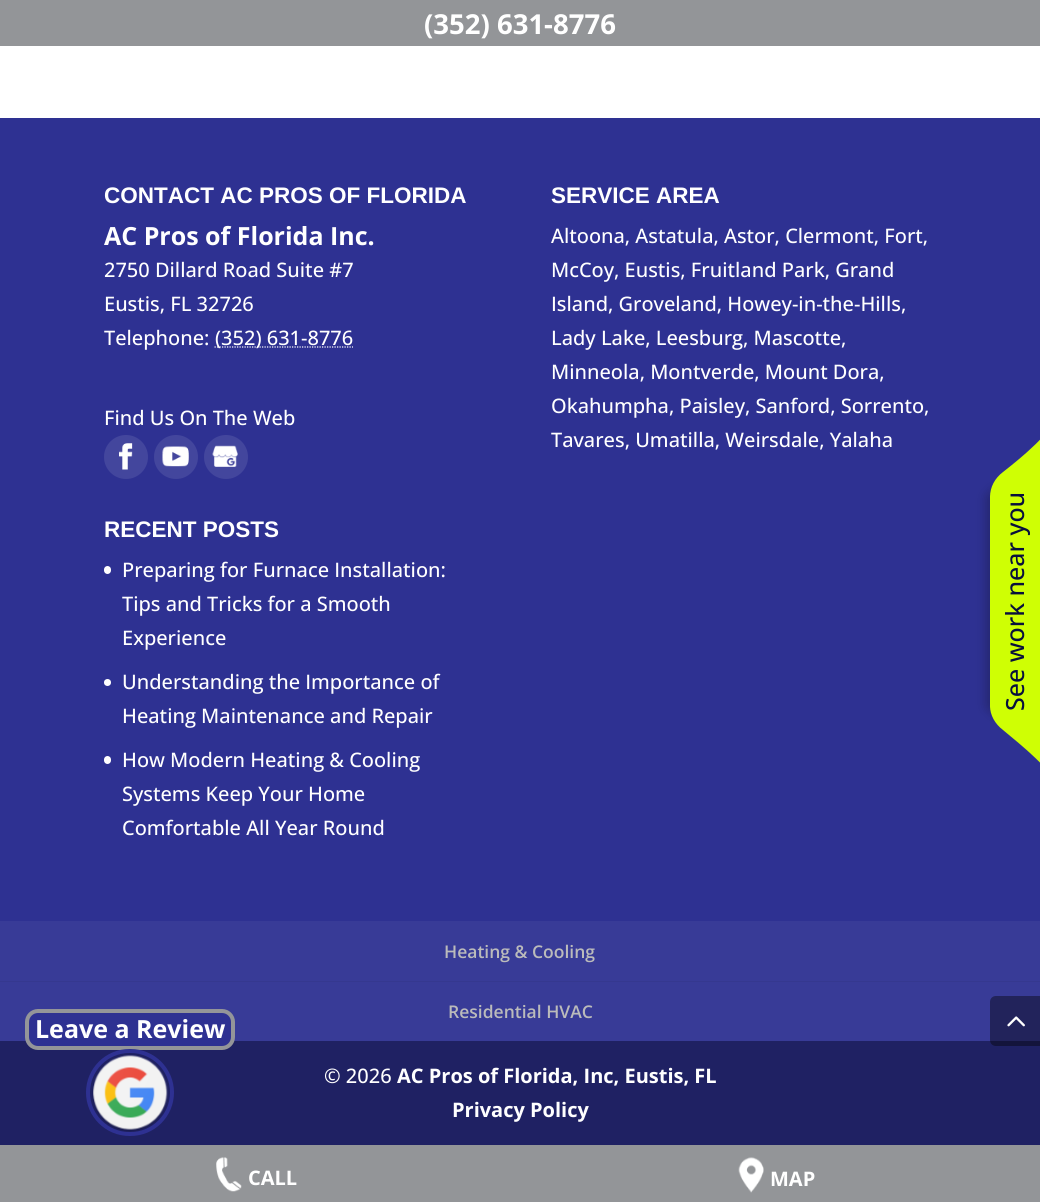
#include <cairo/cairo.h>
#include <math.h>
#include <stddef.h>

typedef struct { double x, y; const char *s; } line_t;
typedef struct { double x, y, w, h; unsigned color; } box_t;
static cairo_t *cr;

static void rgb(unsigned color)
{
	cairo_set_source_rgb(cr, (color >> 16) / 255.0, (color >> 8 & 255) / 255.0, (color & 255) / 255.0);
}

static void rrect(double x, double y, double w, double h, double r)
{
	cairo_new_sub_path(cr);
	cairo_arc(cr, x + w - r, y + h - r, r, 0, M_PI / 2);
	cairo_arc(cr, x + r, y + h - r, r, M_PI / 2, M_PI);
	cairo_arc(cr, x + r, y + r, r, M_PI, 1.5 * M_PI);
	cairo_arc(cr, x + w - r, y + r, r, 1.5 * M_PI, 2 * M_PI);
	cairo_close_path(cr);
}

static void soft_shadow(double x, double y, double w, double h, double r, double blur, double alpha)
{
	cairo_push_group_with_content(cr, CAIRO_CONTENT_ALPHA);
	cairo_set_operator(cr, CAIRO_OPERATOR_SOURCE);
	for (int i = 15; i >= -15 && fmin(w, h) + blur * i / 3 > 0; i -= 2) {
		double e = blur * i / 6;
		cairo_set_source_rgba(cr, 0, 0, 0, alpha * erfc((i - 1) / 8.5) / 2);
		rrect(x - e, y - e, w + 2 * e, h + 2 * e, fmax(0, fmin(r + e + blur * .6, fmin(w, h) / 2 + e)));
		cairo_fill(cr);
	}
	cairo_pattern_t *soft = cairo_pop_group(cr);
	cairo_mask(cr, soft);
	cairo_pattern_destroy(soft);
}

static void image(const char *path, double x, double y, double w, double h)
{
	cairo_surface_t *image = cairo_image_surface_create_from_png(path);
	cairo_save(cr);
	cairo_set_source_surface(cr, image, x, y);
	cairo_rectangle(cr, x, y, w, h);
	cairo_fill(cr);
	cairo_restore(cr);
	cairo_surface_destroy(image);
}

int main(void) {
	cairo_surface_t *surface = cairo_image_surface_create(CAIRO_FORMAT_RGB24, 1040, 1202);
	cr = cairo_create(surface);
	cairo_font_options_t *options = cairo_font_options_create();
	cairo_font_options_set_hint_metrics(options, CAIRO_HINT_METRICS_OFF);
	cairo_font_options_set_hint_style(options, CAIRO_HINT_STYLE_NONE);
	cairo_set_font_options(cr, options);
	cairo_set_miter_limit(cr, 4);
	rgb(0xffffff);
	cairo_paint(cr);
	{
		static const box_t items[] = {
			{0, 118, 1040, 803, 0x2e3192},
			{0, 1041, 1040, 104, 0x1f2163},
			{0, 921, 1040, 120, 0x383b97},
		};
		for (size_t i = 0; i < sizeof items / sizeof *items; i++) {
			rgb(items[i].color);
			cairo_rectangle(cr, items[i].x, items[i].y, items[i].w, items[i].h);
			cairo_fill(cr);
		}
	}
	rgb(0x2e3192);
	rrect(27, 1011, 206, 37, 11);
	cairo_fill_preserve(cr);
	rgb(0x949599);
	cairo_set_line_width(cr, 4);
	cairo_stroke(cr);
	rrect(88, 1051, 84, 83, 41.5);
	rgb(0x2e3192);
	cairo_stroke(cr);
	image("img/1.png", 92, 1055, 76, 77);
	rgb(0x939598);
	cairo_rectangle(cr, 0, 0, 1040, 46);
	cairo_fill(cr);
	cairo_rectangle(cr, 0, 1145, 1040, 57);
	cairo_fill(cr);
	image("img/2.png", 216, 1157, 26, 35);
	image("img/3.png", 738, 1157, 26, 36);
	cairo_new_path(cr);
	cairo_move_to(cr, 214.5, 347);
	cairo_line_to(cr, 353, 347);
	rgb(0xffffff);
	cairo_set_line_width(cr, 1.2);
	cairo_set_dash(cr, (double[]){1.25, 1.25}, 2, 0);
	cairo_stroke(cr);
	rgb(0x43469d);
	cairo_arc(cr, 126, 457, 22, 0, 2 * M_PI);
	cairo_fill(cr);
	image("img/4.png", 119, 443, 14, 27);
	cairo_arc(cr, 176, 457, 22, 0, 2 * M_PI);
	cairo_fill(cr);
	image("img/5.png", 162, 446, 27, 21);
	cairo_arc(cr, 226, 457, 22, 0, 2 * M_PI);
	cairo_fill(cr);
	image("img/6.png", 212, 445, 26, 22);
	rgb(0xffffff);
	rrect(104, 566, 7, 8, 3.5);
	cairo_fill(cr);
	cairo_arc(cr, 107.5, 682.5, 3.5, 0, 2 * M_PI);
	cairo_fill(cr);
	rrect(104, 756, 7, 8, 3.5);
	cairo_fill(cr);
	rgb(0x35388f);
	cairo_rectangle(cr, 0, 981, 1040, 1);
	cairo_fill(cr);
	cairo_set_source_rgba(cr, 0, 0, 0, 0.4);
	cairo_new_path(cr);
	cairo_move_to(cr, 996, 996);
	cairo_line_to(cr, 1040, 996);
	cairo_line_to(cr, 1040, 1046);
	cairo_line_to(cr, 996, 1046);
	cairo_curve_to(cr, 992.5, 1046, 990, 1043.5, 990, 1040);
	cairo_line_to(cr, 990, 1002);
	cairo_curve_to(cr, 990, 998.5, 992.5, 996, 996, 996);
	cairo_close_path(cr);
	cairo_fill(cr);
	image("img/7.png", 1007, 1016, 18, 11);
	rgb(0x070505);
	soft_shadow(986, 489, 50, 225, 10, 5, 0.25);
	rgb(0xcfff04);
	cairo_new_path(cr);
	cairo_move_to(cr, 1000, 489);
	cairo_line_to(cr, 1040, 489);
	cairo_line_to(cr, 1040, 714);
	cairo_line_to(cr, 1000, 714);
	cairo_curve_to(cr, 994.5, 714, 990, 709.5, 990, 704);
	cairo_line_to(cr, 990, 499);
	cairo_curve_to(cr, 990, 493.5, 994.5, 489, 1000, 489);
	cairo_close_path(cr);
	cairo_fill(cr);
	cairo_new_path(cr);
	cairo_move_to(cr, 990, 501);
	cairo_line_to(cr, 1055, 501);
	cairo_curve_to(cr, 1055, 501, 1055, 397, 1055, 416);
	cairo_curve_to(cr, 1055, 430, 1021, 458, 1003, 472);
	cairo_curve_to(cr, 995, 478, 990, 487, 990, 497);
	cairo_close_path(cr);
	cairo_fill(cr);
	cairo_new_path(cr);
	cairo_move_to(cr, 990, 701);
	cairo_line_to(cr, 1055, 701);
	cairo_curve_to(cr, 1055, 701, 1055, 806, 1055, 786);
	cairo_curve_to(cr, 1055, 772, 1021, 745, 1003, 730);
	cairo_curve_to(cr, 995, 724, 990, 715, 990, 706);
	cairo_close_path(cr);
	cairo_fill(cr);
	cairo_select_font_face(cr, "Open Sans", CAIRO_FONT_SLANT_NORMAL, CAIRO_FONT_WEIGHT_BOLD);
	cairo_set_font_size(cr, 25);
	rgb(0xffffff);
	cairo_move_to(cr, 35, 1038);
	cairo_show_text(cr, "Leave a Review");
	cairo_set_font_size(cr, 27.5);
	cairo_move_to(cr, 424, 34);
	cairo_show_text(cr, "(352) 631-8776");
	cairo_select_font_face(cr, "Open Sans Medium", CAIRO_FONT_SLANT_NORMAL, CAIRO_FONT_WEIGHT_NORMAL);
	cairo_set_font_size(cr, 20);
	cairo_move_to(cr, 324, 1083);
	cairo_show_text(cr, "© 2026");
	cairo_select_font_face(cr, "Open Sans", CAIRO_FONT_SLANT_NORMAL, CAIRO_FONT_WEIGHT_BOLD);
	{
		static const line_t items[] = {
			{397, 1083, "AC Pros of Florida, Inc, Eustis, FL"},
			{452, 1117, "Privacy Policy"},
			{248, 1185, "CALL"},
			{770, 1186, "MAP"},
		};
		for (size_t i = 0; i < sizeof items / sizeof *items; i++) {
			cairo_move_to(cr, items[i].x, items[i].y);
			cairo_show_text(cr, items[i].s);
		}
	}
	cairo_select_font_face(cr, "Liberation Sans", CAIRO_FONT_SLANT_NORMAL, CAIRO_FONT_WEIGHT_BOLD);
	cairo_set_font_size(cr, 22.5);
	cairo_move_to(cr, 104, 203);
	cairo_show_text(cr, "CONTACT AC PROS OF FLORIDA");
	cairo_select_font_face(cr, "Open Sans", CAIRO_FONT_SLANT_NORMAL, CAIRO_FONT_WEIGHT_BOLD);
	cairo_set_font_size(cr, 25);
	cairo_move_to(cr, 104, 245);
	cairo_show_text(cr, "AC Pros of Florida Inc.");
	cairo_select_font_face(cr, "Open Sans Medium", CAIRO_FONT_SLANT_NORMAL, CAIRO_FONT_WEIGHT_NORMAL);
	cairo_set_font_size(cr, 20);
	{
		static const line_t items[] = {
			{104, 277, "2750 Dillard Road Suite #7"},
			{104, 311, "Eustis, FL 32726"},
			{104, 345, "Telephone:"},
			{215, 345, "(352) 631-8776"},
			{104, 425, "Find Us On The Web"},
		};
		for (size_t i = 0; i < sizeof items / sizeof *items; i++) {
			cairo_move_to(cr, items[i].x, items[i].y);
			cairo_show_text(cr, items[i].s);
		}
	}
	cairo_select_font_face(cr, "Liberation Sans", CAIRO_FONT_SLANT_NORMAL, CAIRO_FONT_WEIGHT_BOLD);
	cairo_set_font_size(cr, 22.5);
	cairo_move_to(cr, 551, 203);
	cairo_show_text(cr, "SERVICE AREA");
	cairo_select_font_face(cr, "Open Sans Medium", CAIRO_FONT_SLANT_NORMAL, CAIRO_FONT_WEIGHT_NORMAL);
	cairo_set_font_size(cr, 20);
	{
		static const line_t items[] = {
			{551, 243, "Altoona, Astatula, Astor, Clermont, Fort,"},
			{551, 277, "McCoy, Eustis, Fruitland Park, Grand"},
			{551, 311, "Island, Groveland, Howey-in-the-Hills,"},
			{551, 345, "Lady Lake, Leesburg, Mascotte,"},
			{551, 379, "Minneola, Montverde, Mount Dora,"},
			{551, 413, "Okahumpha, Paisley, Sanford, Sorrento,"},
			{551, 447, "Tavares, Umatilla, Weirsdale, Yalaha"},
		};
		for (size_t i = 0; i < sizeof items / sizeof *items; i++) {
			cairo_move_to(cr, items[i].x, items[i].y);
			cairo_show_text(cr, items[i].s);
		}
	}
	cairo_select_font_face(cr, "Liberation Sans", CAIRO_FONT_SLANT_NORMAL, CAIRO_FONT_WEIGHT_BOLD);
	cairo_set_font_size(cr, 22.5);
	cairo_move_to(cr, 104, 537);
	cairo_show_text(cr, "RECENT POSTS");
	cairo_select_font_face(cr, "Open Sans Medium", CAIRO_FONT_SLANT_NORMAL, CAIRO_FONT_WEIGHT_NORMAL);
	cairo_set_font_size(cr, 20);
	{
		static const line_t items[] = {
			{122, 577, "Preparing for Furnace Installation:"},
			{122, 611, "Tips and Tricks for a Smooth"},
			{122, 645, "Experience"},
			{122, 689, "Understanding the Importance of"},
			{122, 723, "Heating Maintenance and Repair"},
			{122, 767, "How Modern Heating & Cooling"},
			{122, 801, "Systems Keep Your Home"},
			{122, 835, "Comfortable All Year Round"},
		};
		for (size_t i = 0; i < sizeof items / sizeof *items; i++) {
			cairo_move_to(cr, items[i].x, items[i].y);
			cairo_show_text(cr, items[i].s);
		}
	}
	cairo_select_font_face(cr, "Open Sans SemiBold", CAIRO_FONT_SLANT_NORMAL, CAIRO_FONT_WEIGHT_NORMAL);
	cairo_set_font_size(cr, 17.5);
	rgb(0xbbbbbb);
	cairo_move_to(cr, 444, 958);
	cairo_show_text(cr, "Heating & Cooling");
	cairo_move_to(cr, 448, 1018);
	cairo_show_text(cr, "Residential HVAC");
	cairo_select_font_face(cr, "Open Sans Medium", CAIRO_FONT_SLANT_NORMAL, CAIRO_FONT_WEIGHT_NORMAL);
	cairo_set_font_size(cr, 25);
	rgb(0x08103d);
	cairo_save(cr);
	cairo_translate(cr, 1024, 711);
	cairo_rotate(cr, -90 * M_PI / 180);
	cairo_move_to(cr, 0, 0);
	cairo_show_text(cr, "See work near you");
	cairo_restore(cr);
	cairo_surface_write_to_png(surface, "page.png");
	cairo_font_options_destroy(options);
	cairo_destroy(cr);
	cairo_surface_destroy(surface);
	return 0;
}
